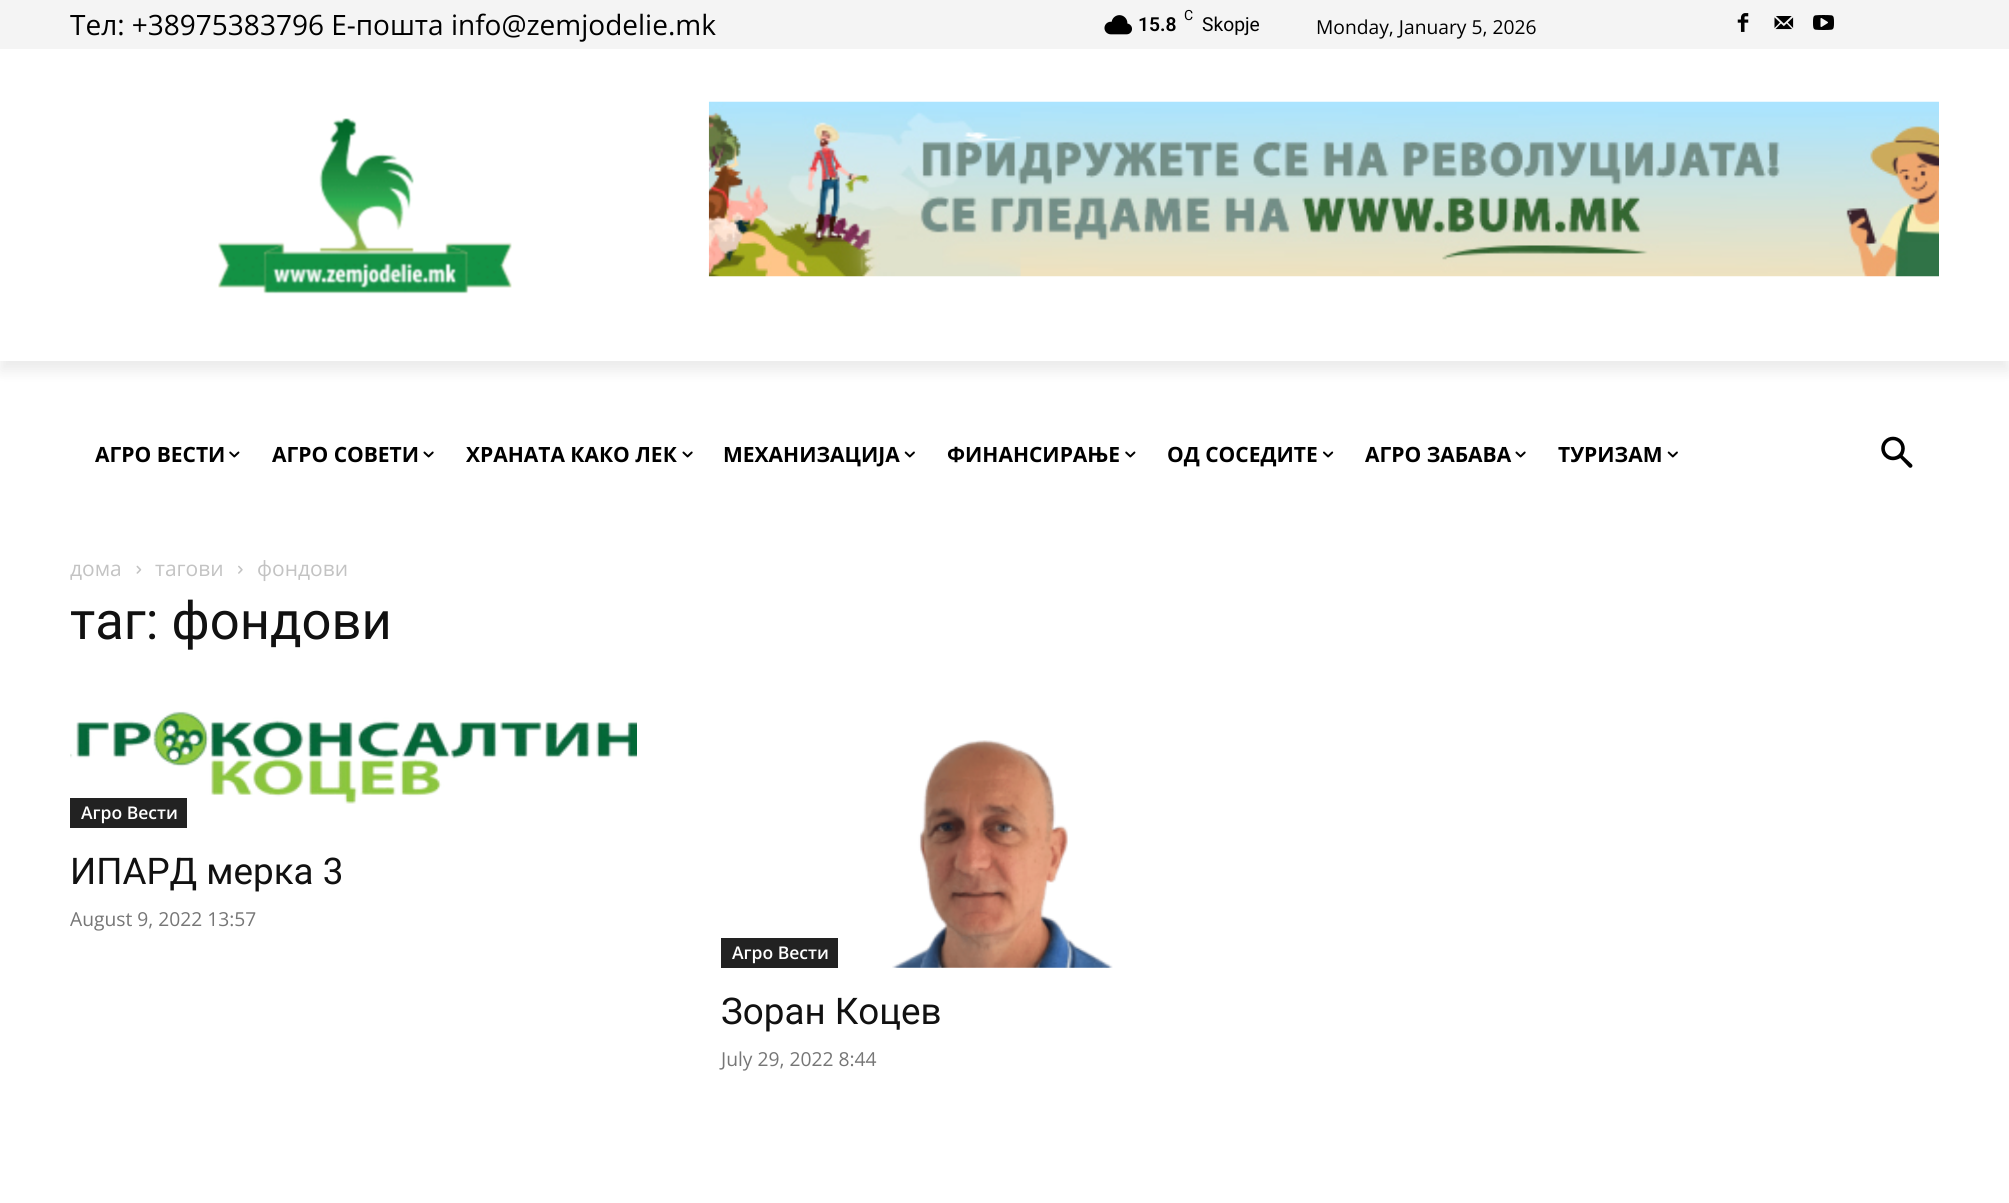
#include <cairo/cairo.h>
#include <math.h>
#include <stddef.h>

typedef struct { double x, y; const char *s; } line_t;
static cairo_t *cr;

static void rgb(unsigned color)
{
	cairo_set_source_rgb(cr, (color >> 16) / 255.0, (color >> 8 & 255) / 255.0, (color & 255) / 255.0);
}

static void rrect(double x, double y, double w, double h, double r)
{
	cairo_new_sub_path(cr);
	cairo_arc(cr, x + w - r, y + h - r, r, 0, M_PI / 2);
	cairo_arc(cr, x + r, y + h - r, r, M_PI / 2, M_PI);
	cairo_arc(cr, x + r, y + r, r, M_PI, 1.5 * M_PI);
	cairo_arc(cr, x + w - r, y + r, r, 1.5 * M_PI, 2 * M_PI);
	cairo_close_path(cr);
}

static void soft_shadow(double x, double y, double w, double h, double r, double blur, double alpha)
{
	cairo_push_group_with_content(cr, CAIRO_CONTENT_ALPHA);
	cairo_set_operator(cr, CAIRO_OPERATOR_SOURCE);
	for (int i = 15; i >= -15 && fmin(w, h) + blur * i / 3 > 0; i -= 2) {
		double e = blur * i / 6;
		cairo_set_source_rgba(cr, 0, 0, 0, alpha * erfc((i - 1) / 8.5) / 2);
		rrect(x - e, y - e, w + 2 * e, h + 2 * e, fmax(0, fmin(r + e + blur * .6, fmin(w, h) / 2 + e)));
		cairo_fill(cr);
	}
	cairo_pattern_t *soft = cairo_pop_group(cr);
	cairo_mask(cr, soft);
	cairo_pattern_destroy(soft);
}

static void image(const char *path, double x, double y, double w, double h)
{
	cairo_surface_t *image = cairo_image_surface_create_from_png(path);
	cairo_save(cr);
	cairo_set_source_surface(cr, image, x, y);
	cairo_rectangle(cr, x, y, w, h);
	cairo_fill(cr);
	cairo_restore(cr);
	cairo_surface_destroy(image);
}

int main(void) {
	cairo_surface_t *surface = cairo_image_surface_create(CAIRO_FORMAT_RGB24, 2009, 1203);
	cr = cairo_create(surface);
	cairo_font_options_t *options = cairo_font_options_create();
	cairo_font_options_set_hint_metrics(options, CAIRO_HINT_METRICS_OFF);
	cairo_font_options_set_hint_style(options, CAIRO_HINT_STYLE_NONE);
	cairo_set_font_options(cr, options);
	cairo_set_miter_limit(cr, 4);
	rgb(0xffffff);
	cairo_paint(cr);
	rgb(0xf4f4f4);
	cairo_rectangle(cr, 0, 0, 2009, 49);
	cairo_fill(cr);
	image("img/1.png", 1104, 15, 28, 20);
	image("img/2.png", 1737, 13, 12, 19);
	image("img/3.png", 1774, 16, 20, 14);
	image("img/4.png", 1813, 15, 21, 15);
	image("img/5.png", 218, 118, 294, 176);
	image("img/6.png", 708, 101, 1231, 176);
	cairo_save(cr);
	cairo_set_fill_rule(cr, CAIRO_FILL_RULE_EVEN_ODD);
	cairo_new_path(cr);
	cairo_move_to(cr, 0, 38);
	cairo_line_to(cr, 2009, 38);
	cairo_line_to(cr, 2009, 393);
	cairo_line_to(cr, 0, 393);
	cairo_close_path(cr);
	cairo_move_to(cr, 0, 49);
	cairo_line_to(cr, 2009, 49);
	cairo_line_to(cr, 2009, 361);
	cairo_line_to(cr, 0, 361);
	cairo_close_path(cr);
	cairo_clip(cr);
	rgb(0x000000);
	soft_shadow(0, 60, 2009, 311, 0, 7, 0.08);
	cairo_restore(cr);
	image("img/7.png", 229, 451, 11, 7);
	image("img/8.png", 423, 451, 11, 7);
	image("img/8.png", 682, 451, 11, 7);
	image("img/9.png", 904, 451, 11, 7);
	image("img/7.png", 1125, 451, 11, 7);
	image("img/10.png", 1323, 451, 11, 7);
	image("img/8.png", 1515, 451, 11, 7);
	image("img/9.png", 1667, 451, 11, 7);
	image("img/11.png", 1881, 436, 32, 32);
	image("img/12.png", 136, 565, 6, 9);
	image("img/13.png", 238, 565, 5, 9);
	image("img/14.png", 70, 711, 567, 93);
	rgb(0x222222);
	cairo_rectangle(cr, 70, 798, 117, 30);
	cairo_fill(cr);
	cairo_rectangle(cr, 721, 938, 117, 30);
	cairo_fill(cr);
	image("img/15.png", 892, 740, 221, 228);
	cairo_select_font_face(cr, "Open Sans", CAIRO_FONT_SLANT_NORMAL, CAIRO_FONT_WEIGHT_NORMAL);
	cairo_set_font_size(cr, 28);
	rgb(0x000000);
	cairo_move_to(cr, 70, 35);
	cairo_show_text(cr, "Тел: +38975383796 Е-пошта info@zemjodelie.mk");
	cairo_select_font_face(cr, "Roboto", CAIRO_FONT_SLANT_NORMAL, CAIRO_FONT_WEIGHT_NORMAL);
	cairo_set_font_size(cr, 14);
	cairo_move_to(cr, 1184, 20);
	cairo_show_text(cr, "C");
	cairo_select_font_face(cr, "Roboto SemiBold", CAIRO_FONT_SLANT_NORMAL, CAIRO_FONT_WEIGHT_NORMAL);
	cairo_set_font_size(cr, 19.25);
	cairo_move_to(cr, 1138, 31);
	cairo_show_text(cr, "15.8");
	cairo_select_font_face(cr, "Roboto", CAIRO_FONT_SLANT_NORMAL, CAIRO_FONT_WEIGHT_NORMAL);
	cairo_move_to(cr, 1202, 31);
	cairo_show_text(cr, "Skopje");
	cairo_select_font_face(cr, "Open Sans", CAIRO_FONT_SLANT_NORMAL, CAIRO_FONT_WEIGHT_NORMAL);
	cairo_move_to(cr, 1316, 34);
	cairo_show_text(cr, "Monday, January 5, 2026");
	cairo_select_font_face(cr, "Open Sans", CAIRO_FONT_SLANT_NORMAL, CAIRO_FONT_WEIGHT_BOLD);
	cairo_set_font_size(cr, 21);
	{
		static const line_t items[] = {
			{95, 462, "АГРО ВЕСТИ"},
			{272, 462, "АГРО СОВЕТИ"},
			{466, 462, "ХРАНАТА КАКО ЛЕК"},
			{723, 462, "МЕХАНИЗАЦИЈА"},
			{947, 462, "ФИНАНСИРАЊЕ"},
			{1167, 462, "ОД СОСЕДИТЕ"},
			{1365, 462, "АГРО ЗАБАВА"},
			{1558, 462, "ТУРИЗАМ"},
		};
		for (size_t i = 0; i < sizeof items / sizeof *items; i++) {
			cairo_move_to(cr, items[i].x, items[i].y);
			cairo_show_text(cr, items[i].s);
		}
	}
	cairo_select_font_face(cr, "Open Sans", CAIRO_FONT_SLANT_NORMAL, CAIRO_FONT_WEIGHT_NORMAL);
	rgb(0xc3c3c3);
	{
		static const line_t items[] = {
			{70, 576, "дома"},
			{155, 576, "тагови"},
			{257, 576, "фондови"},
		};
		for (size_t i = 0; i < sizeof items / sizeof *items; i++) {
			cairo_move_to(cr, items[i].x, items[i].y);
			cairo_show_text(cr, items[i].s);
		}
	}
	cairo_select_font_face(cr, "Roboto", CAIRO_FONT_SLANT_NORMAL, CAIRO_FONT_WEIGHT_NORMAL);
	cairo_set_font_size(cr, 52.5);
	rgb(0x111111);
	cairo_move_to(cr, 70, 639);
	cairo_show_text(cr, "таг: фондови");
	cairo_select_font_face(cr, "Open Sans SemiBold", CAIRO_FONT_SLANT_NORMAL, CAIRO_FONT_WEIGHT_NORMAL);
	cairo_set_font_size(cr, 17.5);
	rgb(0xffffff);
	cairo_move_to(cr, 81, 819);
	cairo_show_text(cr, "Агро Вести");
	cairo_select_font_face(cr, "Roboto", CAIRO_FONT_SLANT_NORMAL, CAIRO_FONT_WEIGHT_NORMAL);
	cairo_set_font_size(cr, 36.75);
	rgb(0x111111);
	cairo_move_to(cr, 70, 884);
	cairo_show_text(cr, "ИПАРД мерка 3");
	cairo_select_font_face(cr, "Open Sans", CAIRO_FONT_SLANT_NORMAL, CAIRO_FONT_WEIGHT_NORMAL);
	cairo_set_font_size(cr, 19.25);
	rgb(0x767676);
	cairo_move_to(cr, 70, 926);
	cairo_show_text(cr, "August 9, 2022 13:57");
	cairo_select_font_face(cr, "Open Sans SemiBold", CAIRO_FONT_SLANT_NORMAL, CAIRO_FONT_WEIGHT_NORMAL);
	cairo_set_font_size(cr, 17.5);
	rgb(0xffffff);
	cairo_move_to(cr, 732, 959);
	cairo_show_text(cr, "Агро Вести");
	cairo_select_font_face(cr, "Roboto", CAIRO_FONT_SLANT_NORMAL, CAIRO_FONT_WEIGHT_NORMAL);
	cairo_set_font_size(cr, 36.75);
	rgb(0x111111);
	cairo_move_to(cr, 721, 1024);
	cairo_show_text(cr, "Зоран Коцев");
	cairo_select_font_face(cr, "Open Sans", CAIRO_FONT_SLANT_NORMAL, CAIRO_FONT_WEIGHT_NORMAL);
	cairo_set_font_size(cr, 19.25);
	rgb(0x767676);
	cairo_move_to(cr, 721, 1066);
	cairo_show_text(cr, "July 29, 2022 8:44");
	cairo_surface_write_to_png(surface, "page.png");
	cairo_font_options_destroy(options);
	cairo_destroy(cr);
	cairo_surface_destroy(surface);
	return 0;
}
